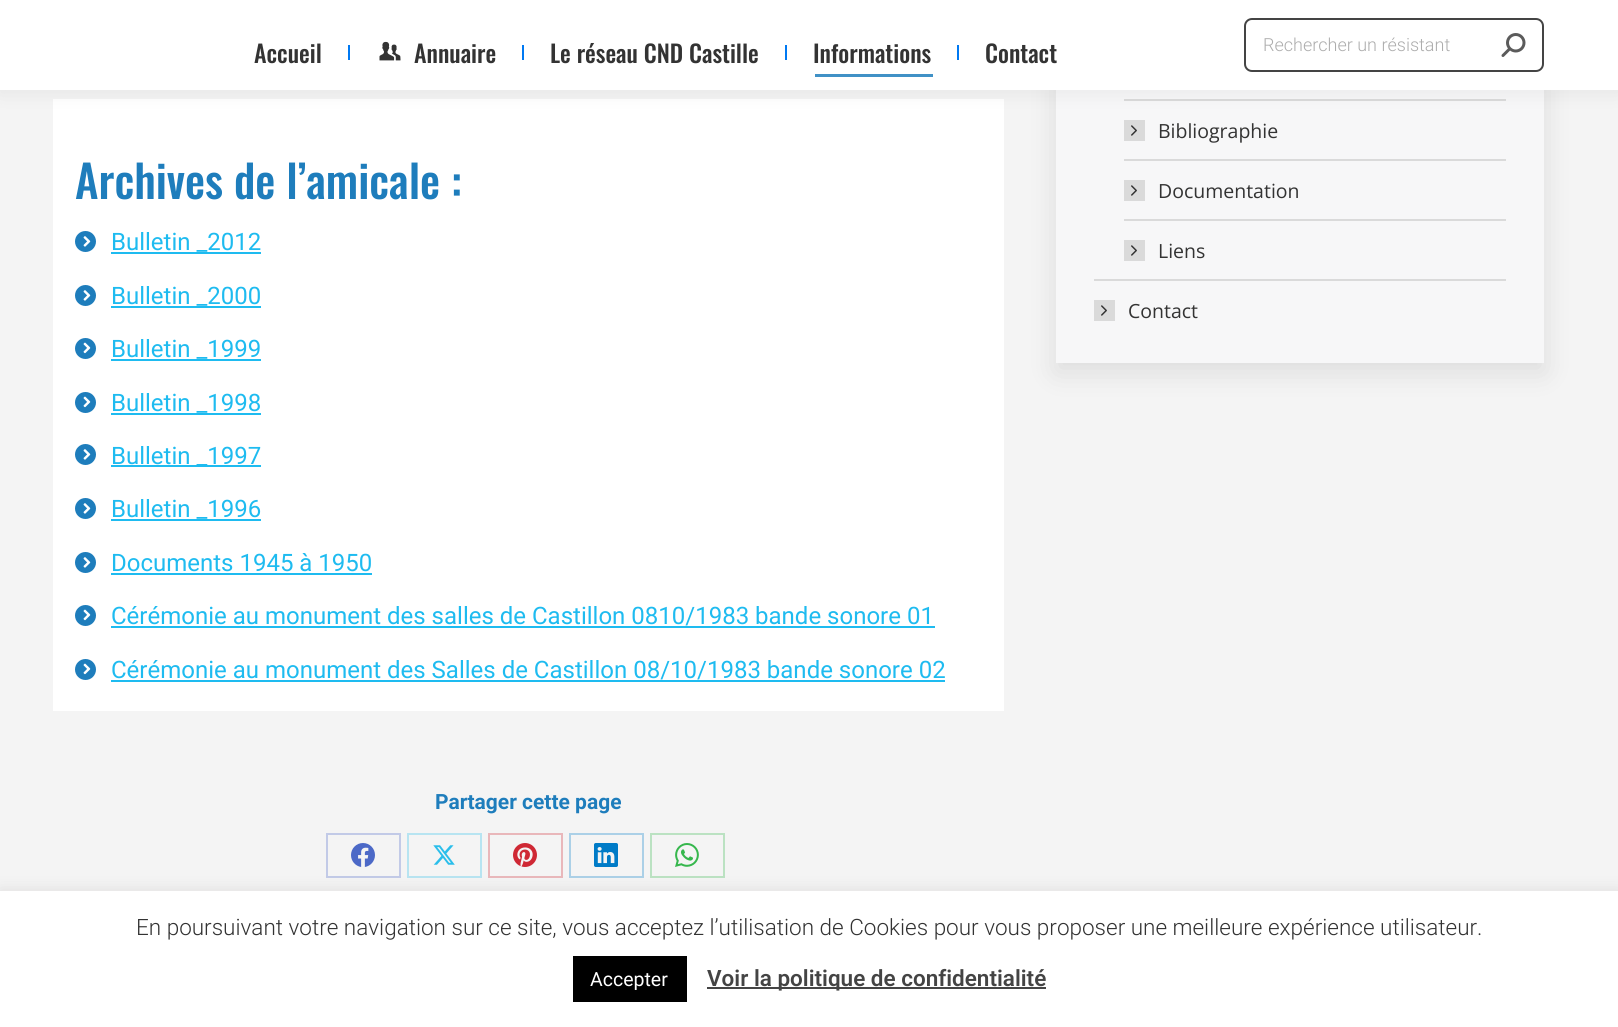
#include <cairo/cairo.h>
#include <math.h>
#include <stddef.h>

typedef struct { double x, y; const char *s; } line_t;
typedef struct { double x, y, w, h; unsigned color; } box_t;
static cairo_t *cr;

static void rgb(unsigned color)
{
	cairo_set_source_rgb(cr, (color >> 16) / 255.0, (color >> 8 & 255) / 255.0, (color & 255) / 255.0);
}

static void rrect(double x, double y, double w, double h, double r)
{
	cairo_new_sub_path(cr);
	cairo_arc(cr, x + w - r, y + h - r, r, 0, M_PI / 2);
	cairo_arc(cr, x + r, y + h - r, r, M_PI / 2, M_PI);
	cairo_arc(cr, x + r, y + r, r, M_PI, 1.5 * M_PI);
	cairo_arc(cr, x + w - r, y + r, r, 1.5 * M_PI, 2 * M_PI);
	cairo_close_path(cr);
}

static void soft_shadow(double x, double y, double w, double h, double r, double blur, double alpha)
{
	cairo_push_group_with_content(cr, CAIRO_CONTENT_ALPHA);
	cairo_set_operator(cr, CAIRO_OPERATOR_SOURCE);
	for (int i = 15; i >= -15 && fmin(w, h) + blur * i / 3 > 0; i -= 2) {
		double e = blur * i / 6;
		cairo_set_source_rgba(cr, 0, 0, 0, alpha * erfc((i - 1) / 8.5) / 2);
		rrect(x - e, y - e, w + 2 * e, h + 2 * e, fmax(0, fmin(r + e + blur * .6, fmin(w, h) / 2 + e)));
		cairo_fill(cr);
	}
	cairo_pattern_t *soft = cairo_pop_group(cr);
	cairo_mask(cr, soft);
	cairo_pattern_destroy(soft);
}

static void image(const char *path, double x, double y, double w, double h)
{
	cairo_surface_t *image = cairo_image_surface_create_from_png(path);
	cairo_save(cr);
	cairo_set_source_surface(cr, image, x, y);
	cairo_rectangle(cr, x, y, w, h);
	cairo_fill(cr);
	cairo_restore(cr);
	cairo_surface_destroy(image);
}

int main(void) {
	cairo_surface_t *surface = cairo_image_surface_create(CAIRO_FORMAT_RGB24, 1618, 1027);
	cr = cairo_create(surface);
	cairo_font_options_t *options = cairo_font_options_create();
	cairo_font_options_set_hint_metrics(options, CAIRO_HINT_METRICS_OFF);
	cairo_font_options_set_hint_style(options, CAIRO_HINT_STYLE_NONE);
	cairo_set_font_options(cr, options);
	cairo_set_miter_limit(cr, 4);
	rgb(0xf4f4f4);
	cairo_paint(cr);
	rgb(0xffffff);
	cairo_rectangle(cr, 53, 99, 951, 612);
	cairo_fill(cr);
	rgb(0x000000);
	soft_shadow(1056, -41, 488, 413, 0, 13.5, 0.1);
	{
		static const box_t items[] = {
			{1056, 90, 488, 273, 0xf7f7f8},
			{1124, 99, 382, 2, 0xdadada},
			{1124, 120, 21, 21, 0xdadada},
		};
		for (size_t i = 0; i < sizeof items / sizeof *items; i++) {
			rgb(items[i].color);
			cairo_rectangle(cr, items[i].x, items[i].y, items[i].w, items[i].h);
			cairo_fill(cr);
		}
	}
	image("img/10.png", 1131, 125, 6, 11);
	rgb(0x000000);
	soft_shadow(-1, -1, 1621, 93, 0, 11, 0.07);
	rgb(0xffffff);
	cairo_rectangle(cr, 0, 0, 1618, 90);
	cairo_fill(cr);
	rgb(0x0079f2);
	cairo_rectangle(cr, 348, 45, 2, 15);
	cairo_fill(cr);
	image("img/1.png", 379, 41, 22, 20);
	{
		static const box_t items[] = {
			{522, 45, 2, 15, 0x0079f2},
			{785, 45, 2, 15, 0x0079f2},
			{815, 74, 118, 3, 0x4091c6},
			{957, 45, 2, 15, 0x0079f2},
		};
		for (size_t i = 0; i < sizeof items / sizeof *items; i++) {
			rgb(items[i].color);
			cairo_rectangle(cr, items[i].x, items[i].y, items[i].w, items[i].h);
			cairo_fill(cr);
		}
	}
	rrect(1245, 19, 298, 52, 7);
	rgb(0x444444);
	cairo_stroke(cr);
	image("img/2.png", 1501, 33, 25, 24);
	rgb(0x1e7dbc);
	cairo_arc(cr, 85.5, 241.5, 10.5, 0, 2 * M_PI);
	cairo_fill(cr);
	rgb(0x1ebbf0);
	cairo_rectangle(cr, 111, 252, 150, 2);
	cairo_fill(cr);
	image("img/3.png", 83, 236, 8, 11);
	rgb(0x1e7dbc);
	cairo_arc(cr, 85.5, 295.5, 10.5, 0, 2 * M_PI);
	cairo_fill(cr);
	rgb(0x1ebbf0);
	cairo_rectangle(cr, 111, 306, 150, 2);
	cairo_fill(cr);
	image("img/3.png", 83, 290, 8, 11);
	rgb(0x1e7dbc);
	cairo_arc(cr, 85.5, 348.5, 10.5, 0, 2 * M_PI);
	cairo_fill(cr);
	rgb(0x1ebbf0);
	cairo_rectangle(cr, 111, 359, 150, 2);
	cairo_fill(cr);
	image("img/4.png", 83, 342, 8, 12);
	rgb(0x1e7dbc);
	cairo_arc(cr, 85.5, 402.5, 10.5, 0, 2 * M_PI);
	cairo_fill(cr);
	rgb(0x1ebbf0);
	cairo_rectangle(cr, 111, 413, 150, 2);
	cairo_fill(cr);
	image("img/4.png", 83, 396, 8, 12);
	rgb(0x1e7dbc);
	cairo_arc(cr, 85.5, 454.5, 10.5, 0, 2 * M_PI);
	cairo_fill(cr);
	rgb(0x1ebbf0);
	cairo_rectangle(cr, 111, 465, 150, 2);
	cairo_fill(cr);
	image("img/3.png", 83, 449, 8, 11);
	rgb(0x1e7dbc);
	cairo_arc(cr, 85.5, 508.5, 10.5, 0, 2 * M_PI);
	cairo_fill(cr);
	rgb(0x1ebbf0);
	cairo_rectangle(cr, 111, 519, 150, 2);
	cairo_fill(cr);
	image("img/3.png", 83, 503, 8, 11);
	rgb(0x1e7dbc);
	cairo_arc(cr, 85.5, 562.5, 10.5, 0, 2 * M_PI);
	cairo_fill(cr);
	rgb(0x1ebbf0);
	cairo_rectangle(cr, 111, 573, 261, 2);
	cairo_fill(cr);
	image("img/3.png", 83, 557, 8, 11);
	rgb(0x1e7dbc);
	cairo_arc(cr, 85.5, 615.5, 10.5, 0, 2 * M_PI);
	cairo_fill(cr);
	rgb(0x1ebbf0);
	cairo_rectangle(cr, 111, 626, 824, 2);
	cairo_fill(cr);
	image("img/4.png", 83, 609, 8, 12);
	rgb(0x1e7dbc);
	cairo_arc(cr, 85.5, 669.5, 10.5, 0, 2 * M_PI);
	cairo_fill(cr);
	rgb(0x1ebbf0);
	cairo_rectangle(cr, 111, 680, 834, 2);
	cairo_fill(cr);
	image("img/4.png", 83, 663, 8, 12);
	cairo_rectangle(cr, 327, 834, 73, 43);
	rgb(0xc2cae7);
	cairo_stroke(cr);
	image("img/5.png", 351, 843, 24, 24);
	cairo_rectangle(cr, 408, 834, 73, 43);
	rgb(0xb7e4f1);
	cairo_stroke(cr);
	image("img/6.png", 433, 845, 22, 20);
	cairo_rectangle(cr, 489, 834, 73, 43);
	rgb(0xe9b7ba);
	cairo_stroke(cr);
	image("img/7.png", 513, 843, 24, 24);
	cairo_rectangle(cr, 570, 834, 73, 43);
	rgb(0xabd0e7);
	cairo_stroke(cr);
	image("img/8.png", 594, 843, 24, 24);
	cairo_rectangle(cr, 651, 834, 73, 43);
	rgb(0xbbe2c2);
	cairo_stroke(cr);
	image("img/9.png", 675, 843, 24, 24);
	rgb(0xdadada);
	cairo_rectangle(cr, 1124, 159, 382, 2);
	cairo_fill(cr);
	cairo_rectangle(cr, 1124, 180, 21, 21);
	cairo_fill(cr);
	image("img/10.png", 1131, 185, 6, 11);
	cairo_rectangle(cr, 1124, 219, 382, 2);
	cairo_fill(cr);
	cairo_rectangle(cr, 1124, 240, 21, 21);
	cairo_fill(cr);
	image("img/10.png", 1131, 245, 6, 11);
	cairo_rectangle(cr, 1094, 279, 412, 2);
	cairo_fill(cr);
	cairo_rectangle(cr, 1094, 300, 21, 21);
	cairo_fill(cr);
	image("img/10.png", 1101, 305, 6, 11);
	rgb(0xacabab);
	soft_shadow(0, 890, 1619, 136, 0, 7.5, 0.3);
	{
		static const box_t items[] = {
			{0, 891, 1618, 136, 0xffffff},
			{573, 956, 114, 46, 0x000000},
			{707, 987, 339, 2, 0x444444},
		};
		for (size_t i = 0; i < sizeof items / sizeof *items; i++) {
			rgb(items[i].color);
			cairo_rectangle(cr, items[i].x, items[i].y, items[i].w, items[i].h);
			cairo_fill(cr);
		}
	}
	cairo_select_font_face(cr, "Oswald Medium", CAIRO_FONT_SLANT_NORMAL, CAIRO_FONT_WEIGHT_NORMAL);
	cairo_set_font_size(cr, 24);
	rgb(0x333333);
	{
		static const line_t items[] = {
			{254, 63, "Accueil"},
			{414, 63, "Annuaire"},
			{550, 63, "Le réseau CND Castille"},
			{813, 63, "Informations"},
			{985, 63, "Contact"},
		};
		for (size_t i = 0; i < sizeof items / sizeof *items; i++) {
			cairo_move_to(cr, items[i].x, items[i].y);
			cairo_show_text(cr, items[i].s);
		}
	}
	cairo_select_font_face(cr, "Roboto Light", CAIRO_FONT_SLANT_NORMAL, CAIRO_FONT_WEIGHT_NORMAL);
	cairo_set_font_size(cr, 18);
	rgb(0xadadad);
	cairo_move_to(cr, 1263, 51);
	cairo_show_text(cr, "Rechercher un résistant");
	cairo_select_font_face(cr, "Oswald Medium", CAIRO_FONT_SLANT_NORMAL, CAIRO_FONT_WEIGHT_NORMAL);
	cairo_set_font_size(cr, 45);
	rgb(0x1e7dbc);
	cairo_move_to(cr, 75, 199);
	cairo_show_text(cr, "Archives de l’amicale :");
	cairo_select_font_face(cr, "Roboto", CAIRO_FONT_SLANT_NORMAL, CAIRO_FONT_WEIGHT_NORMAL);
	cairo_set_font_size(cr, 24);
	rgb(0x1ebbf0);
	{
		static const line_t items[] = {
			{111, 250, "Bulletin _2012"},
			{111, 304, "Bulletin _2000"},
			{111, 357, "Bulletin _1999"},
			{111, 411, "Bulletin _1998"},
			{111, 464, "Bulletin _1997"},
			{111, 517, "Bulletin _1996"},
			{111, 571, "Documents 1945 à 1950"},
			{111, 624, "Cérémonie au monument des salles de Castillon 0810/1983 bande sonore 01"},
			{111, 678, "Cérémonie au monument des Salles de Castillon 08/10/1983 bande sonore 02"},
		};
		for (size_t i = 0; i < sizeof items / sizeof *items; i++) {
			cairo_move_to(cr, items[i].x, items[i].y);
			cairo_show_text(cr, items[i].s);
		}
	}
	cairo_select_font_face(cr, "Roboto", CAIRO_FONT_SLANT_NORMAL, CAIRO_FONT_WEIGHT_BOLD);
	cairo_set_font_size(cr, 21);
	rgb(0x1e7dbc);
	cairo_move_to(cr, 435, 809);
	cairo_show_text(cr, "Partager cette page");
	cairo_select_font_face(cr, "Open Sans", CAIRO_FONT_SLANT_NORMAL, CAIRO_FONT_WEIGHT_NORMAL);
	cairo_set_font_size(cr, 19.5);
	rgb(0x333333);
	{
		static const line_t items[] = {
			{1158, 138, "Bibliographie"},
			{1158, 198, "Documentation"},
			{1158, 258, "Liens"},
			{1128, 318, "Contact"},
		};
		for (size_t i = 0; i < sizeof items / sizeof *items; i++) {
			cairo_move_to(cr, items[i].x, items[i].y);
			cairo_show_text(cr, items[i].s);
		}
	}
	cairo_select_font_face(cr, "Roboto Light", CAIRO_FONT_SLANT_NORMAL, CAIRO_FONT_WEIGHT_NORMAL);
	cairo_set_font_size(cr, 22.5);
	cairo_move_to(cr, 136, 935);
	cairo_show_text(cr, "En poursuivant votre navigation sur ce site, vous acceptez l’utilisation de Cookies pour vous proposer une meilleure expérience utilisateur.");
	cairo_select_font_face(cr, "Roboto", CAIRO_FONT_SLANT_NORMAL, CAIRO_FONT_WEIGHT_NORMAL);
	cairo_set_font_size(cr, 19.5);
	rgb(0xffffff);
	cairo_move_to(cr, 590, 986);
	cairo_show_text(cr, "Accepter");
	cairo_select_font_face(cr, "Roboto SemiBold", CAIRO_FONT_SLANT_NORMAL, CAIRO_FONT_WEIGHT_NORMAL);
	cairo_set_font_size(cr, 22.5);
	rgb(0x444444);
	cairo_move_to(cr, 707, 986);
	cairo_show_text(cr, "Voir la politique de confidentialité");
	cairo_surface_write_to_png(surface, "page.png");
	cairo_font_options_destroy(options);
	cairo_destroy(cr);
	cairo_surface_destroy(surface);
	return 0;
}
